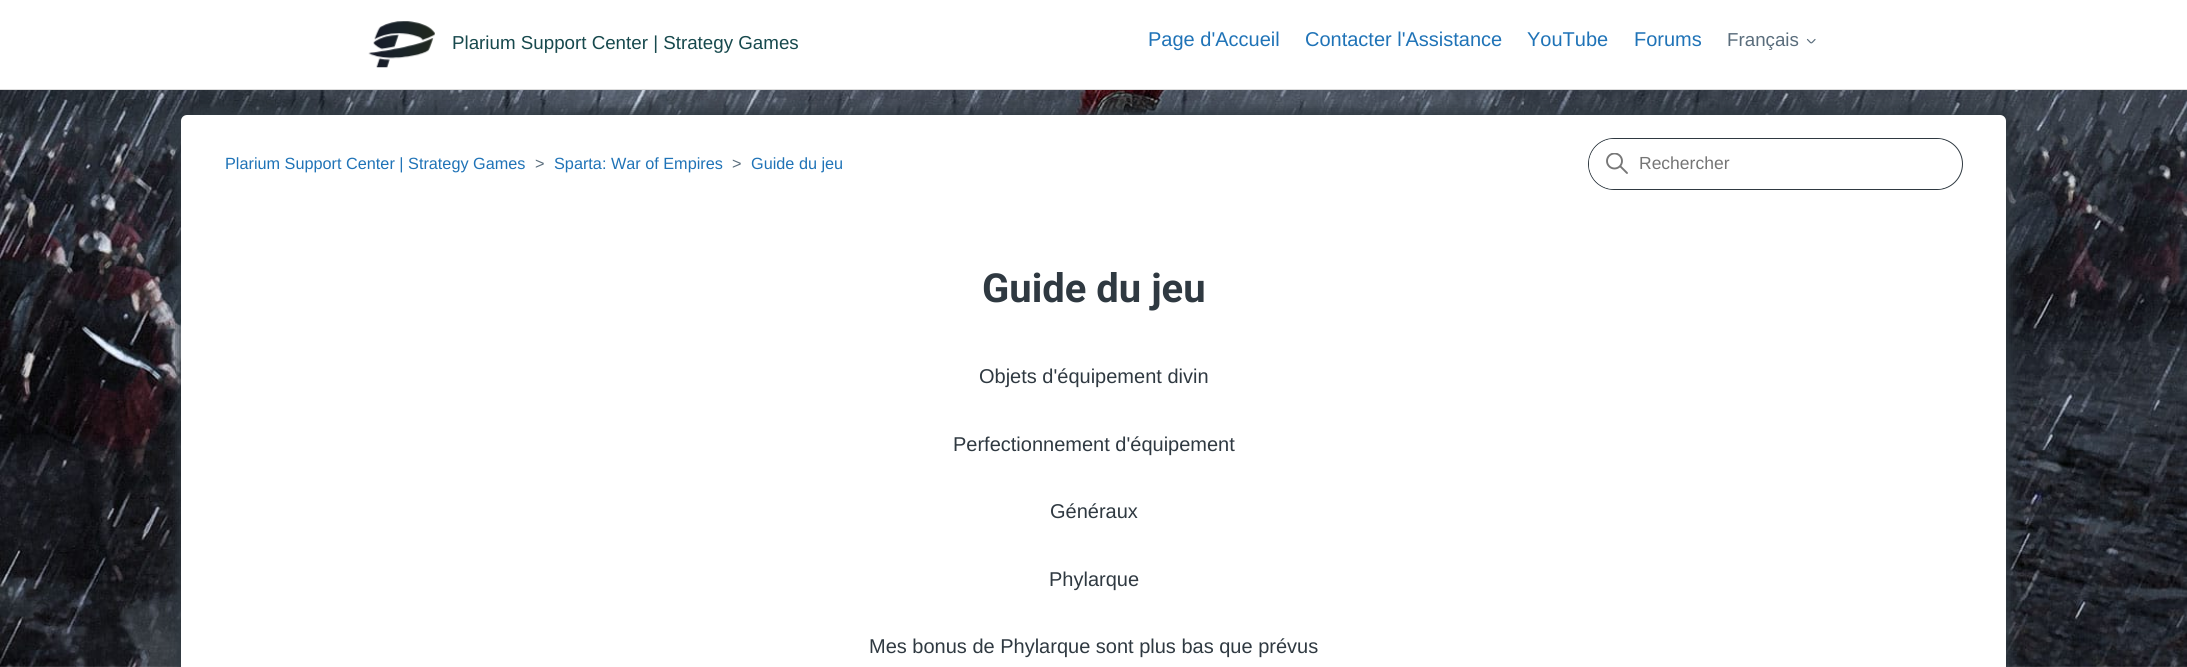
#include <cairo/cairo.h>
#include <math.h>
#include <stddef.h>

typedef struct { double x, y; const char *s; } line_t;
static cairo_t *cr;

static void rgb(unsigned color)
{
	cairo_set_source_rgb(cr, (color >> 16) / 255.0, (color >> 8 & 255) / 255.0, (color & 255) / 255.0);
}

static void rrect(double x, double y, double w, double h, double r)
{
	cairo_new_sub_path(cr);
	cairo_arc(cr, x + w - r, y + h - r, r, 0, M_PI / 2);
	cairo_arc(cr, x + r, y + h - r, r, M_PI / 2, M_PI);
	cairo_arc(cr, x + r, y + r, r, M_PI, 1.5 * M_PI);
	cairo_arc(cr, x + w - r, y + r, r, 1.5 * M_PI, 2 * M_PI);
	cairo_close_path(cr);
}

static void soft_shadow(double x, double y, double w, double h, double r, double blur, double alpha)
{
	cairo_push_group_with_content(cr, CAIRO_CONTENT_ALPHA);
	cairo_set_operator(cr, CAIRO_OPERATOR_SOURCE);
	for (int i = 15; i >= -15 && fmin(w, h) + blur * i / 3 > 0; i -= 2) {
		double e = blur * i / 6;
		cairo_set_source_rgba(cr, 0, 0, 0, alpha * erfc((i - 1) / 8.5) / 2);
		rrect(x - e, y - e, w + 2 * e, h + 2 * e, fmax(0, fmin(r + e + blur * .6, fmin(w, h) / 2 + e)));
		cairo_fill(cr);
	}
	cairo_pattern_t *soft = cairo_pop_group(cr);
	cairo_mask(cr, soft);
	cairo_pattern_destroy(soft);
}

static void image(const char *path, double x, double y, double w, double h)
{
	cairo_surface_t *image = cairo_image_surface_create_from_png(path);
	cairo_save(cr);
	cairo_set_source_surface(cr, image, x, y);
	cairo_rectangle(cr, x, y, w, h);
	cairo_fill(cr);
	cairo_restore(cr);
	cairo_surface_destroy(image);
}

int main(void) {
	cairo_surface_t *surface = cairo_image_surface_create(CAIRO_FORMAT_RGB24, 2187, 667);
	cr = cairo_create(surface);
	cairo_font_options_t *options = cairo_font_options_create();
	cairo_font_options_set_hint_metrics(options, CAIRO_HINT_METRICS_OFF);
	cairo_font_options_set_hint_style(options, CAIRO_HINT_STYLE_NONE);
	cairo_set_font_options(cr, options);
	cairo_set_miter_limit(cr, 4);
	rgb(0xffffff);
	cairo_paint(cr);
	image("img/1.png", 368, 21, 67, 47);
	cairo_new_path(cr);
	cairo_move_to(cr, 1807.5, 39.5);
	cairo_curve_to(cr, 1812, 44, 1810.5, 44, 1815, 39.5);
	rgb(0x5a6d7c);
	cairo_set_line_width(cr, 1.2);
	cairo_set_line_cap(cr, CAIRO_LINE_CAP_ROUND);
	cairo_stroke(cr);
	image("img/2.png", 0, 90, 2187, 577);
	rgb(0xdddddd);
	cairo_rectangle(cr, 0, 89, 2187, 1);
	cairo_fill(cr);
	rgb(0x2f3941);
	soft_shadow(178, 111, 1832, 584, 10, 6, 1);
	rgb(0xffffff);
	rrect(181, 115, 1825, 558, 6);
	cairo_fill(cr);
	rrect(1588.5, 138.5, 374, 51, 25.5);
	rgb(0x2f3941);
	cairo_set_line_width(cr, 1);
	cairo_set_line_cap(cr, CAIRO_LINE_CAP_BUTT);
	cairo_stroke(cr);
	rgb(0xffffff);
	rrect(1589, 139, 372, 50, 25);
	cairo_fill(cr);
	cairo_save(cr);
	cairo_rectangle(cr, 1606, 153, 23, 22);
	cairo_clip(cr);
	cairo_arc(cr, 1614.5, 161, 7.5, 0, 2 * M_PI);
	rgb(0x777777);
	cairo_set_line_width(cr, 1.9);
	cairo_stroke(cr);
	cairo_restore(cr);
	cairo_new_path(cr);
	cairo_move_to(cr, 1627, 173);
	cairo_line_to(cr, 1620.5, 166.5);
	rgb(0x777777);
	cairo_set_line_width(cr, 1.9);
	cairo_set_line_cap(cr, CAIRO_LINE_CAP_ROUND);
	cairo_stroke(cr);
	cairo_select_font_face(cr, "Liberation Sans", CAIRO_FONT_SLANT_NORMAL, CAIRO_FONT_WEIGHT_NORMAL);
	cairo_set_font_size(cr, 18.75);
	rgb(0x17494d);
	cairo_move_to(cr, 452, 49);
	cairo_show_text(cr, "Plarium Support Center | Strategy Games");
	cairo_set_font_size(cr, 20);
	rgb(0x1f73b7);
	{
		static const line_t items[] = {
			{1148, 46, "Page d'Accueil"},
			{1305, 46, "Contacter l'Assistance"},
			{1527, 46, "YouTube"},
			{1634, 46, "Forums"},
		};
		for (size_t i = 0; i < sizeof items / sizeof *items; i++) {
			cairo_move_to(cr, items[i].x, items[i].y);
			cairo_show_text(cr, items[i].s);
		}
	}
	cairo_set_font_size(cr, 18.75);
	rgb(0x5a6d7c);
	cairo_move_to(cr, 1727, 46);
	cairo_show_text(cr, "Français");
	cairo_set_font_size(cr, 16.25);
	rgb(0x1f73b7);
	cairo_move_to(cr, 225, 169);
	cairo_show_text(cr, "Plarium Support Center | Strategy Games");
	rgb(0x5a6d7c);
	cairo_move_to(cr, 535, 169);
	cairo_show_text(cr, ">");
	rgb(0x1f73b7);
	cairo_move_to(cr, 554, 169);
	cairo_show_text(cr, "Sparta: War of Empires");
	rgb(0x5a6d7c);
	cairo_move_to(cr, 732, 169);
	cairo_show_text(cr, ">");
	rgb(0x1f73b7);
	cairo_move_to(cr, 751, 169);
	cairo_show_text(cr, "Guide du jeu");
	cairo_set_font_size(cr, 17.5);
	rgb(0x757575);
	cairo_move_to(cr, 1639, 169);
	cairo_show_text(cr, "Rechercher");
	cairo_select_font_face(cr, "Roboto", CAIRO_FONT_SLANT_NORMAL, CAIRO_FONT_WEIGHT_BOLD);
	cairo_set_font_size(cr, 40);
	rgb(0x2f3941);
	cairo_move_to(cr, 982, 302);
	cairo_show_text(cr, "Guide du jeu");
	cairo_select_font_face(cr, "Liberation Sans", CAIRO_FONT_SLANT_NORMAL, CAIRO_FONT_WEIGHT_NORMAL);
	cairo_set_font_size(cr, 20);
	{
		static const line_t items[] = {
			{979, 383, "Objets d'équipement divin"},
			{953, 451, "Perfectionnement d'équipement"},
			{1050, 518, "Généraux"},
			{1049, 586, "Phylarque"},
			{869, 653, "Mes bonus de Phylarque sont plus bas que prévus"},
		};
		for (size_t i = 0; i < sizeof items / sizeof *items; i++) {
			cairo_move_to(cr, items[i].x, items[i].y);
			cairo_show_text(cr, items[i].s);
		}
	}
	cairo_surface_write_to_png(surface, "page.png");
	cairo_font_options_destroy(options);
	cairo_destroy(cr);
	cairo_surface_destroy(surface);
	return 0;
}
